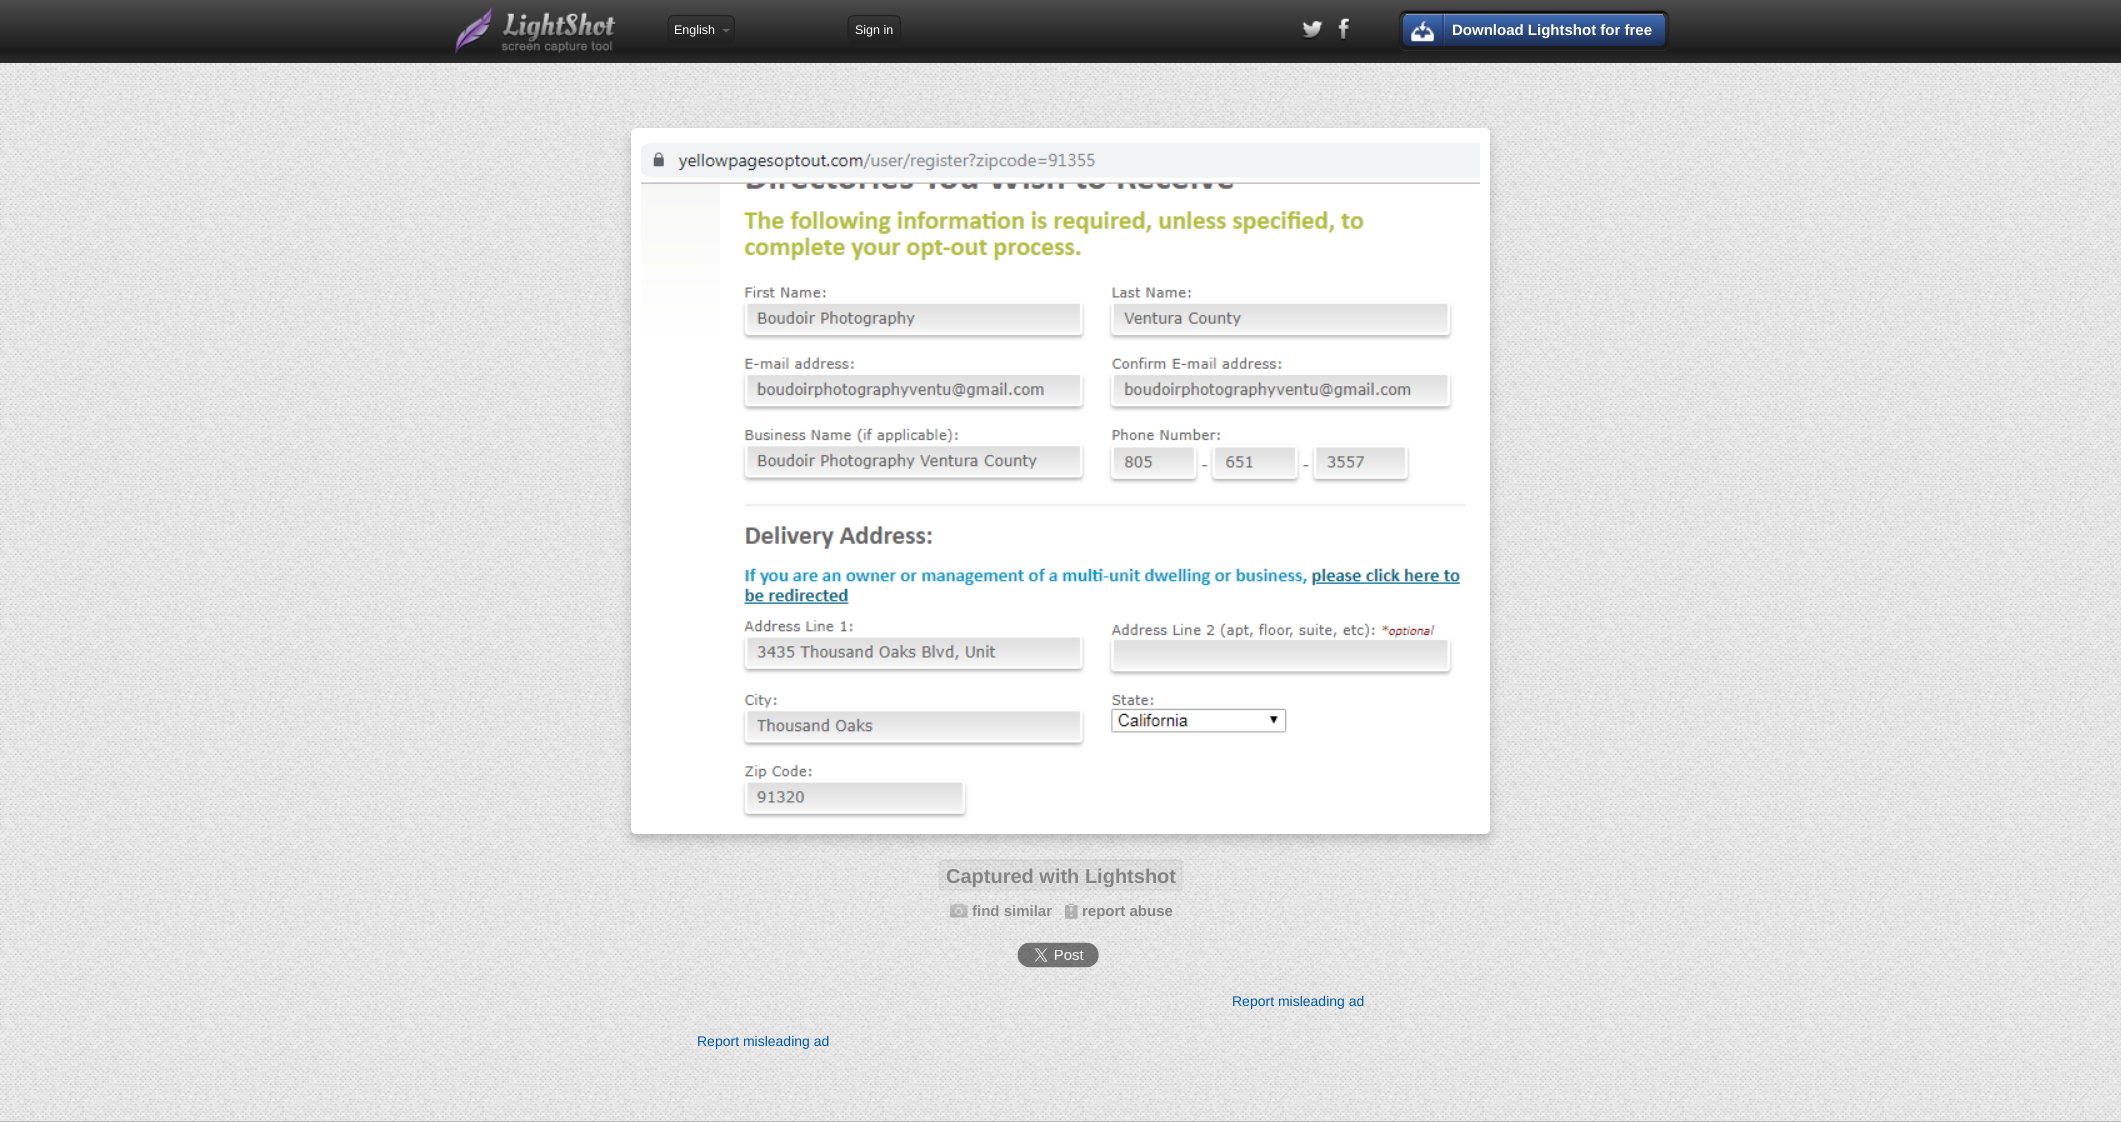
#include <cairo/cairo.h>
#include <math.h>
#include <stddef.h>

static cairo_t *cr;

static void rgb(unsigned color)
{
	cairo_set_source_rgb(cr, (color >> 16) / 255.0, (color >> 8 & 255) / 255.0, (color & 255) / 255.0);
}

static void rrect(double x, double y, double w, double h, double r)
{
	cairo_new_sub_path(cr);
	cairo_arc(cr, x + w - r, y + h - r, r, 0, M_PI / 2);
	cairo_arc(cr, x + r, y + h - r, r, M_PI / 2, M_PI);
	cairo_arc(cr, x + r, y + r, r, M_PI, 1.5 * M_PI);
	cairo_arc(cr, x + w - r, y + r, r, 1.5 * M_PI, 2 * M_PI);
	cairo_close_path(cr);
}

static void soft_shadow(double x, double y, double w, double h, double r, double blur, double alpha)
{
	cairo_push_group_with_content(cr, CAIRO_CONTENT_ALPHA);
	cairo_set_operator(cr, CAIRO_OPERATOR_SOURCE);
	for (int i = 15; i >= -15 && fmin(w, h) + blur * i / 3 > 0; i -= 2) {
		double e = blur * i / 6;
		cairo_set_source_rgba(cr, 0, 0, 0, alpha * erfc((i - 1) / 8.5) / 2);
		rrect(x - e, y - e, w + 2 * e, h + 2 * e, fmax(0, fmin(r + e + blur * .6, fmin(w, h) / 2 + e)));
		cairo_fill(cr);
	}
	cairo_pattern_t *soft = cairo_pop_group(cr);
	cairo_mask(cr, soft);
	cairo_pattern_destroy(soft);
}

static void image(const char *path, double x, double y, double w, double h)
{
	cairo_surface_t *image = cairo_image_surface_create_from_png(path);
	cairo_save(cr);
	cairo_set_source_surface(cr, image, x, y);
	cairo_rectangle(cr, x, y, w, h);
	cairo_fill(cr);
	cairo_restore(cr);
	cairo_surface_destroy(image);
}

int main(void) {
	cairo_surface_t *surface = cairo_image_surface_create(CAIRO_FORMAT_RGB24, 2121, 1122);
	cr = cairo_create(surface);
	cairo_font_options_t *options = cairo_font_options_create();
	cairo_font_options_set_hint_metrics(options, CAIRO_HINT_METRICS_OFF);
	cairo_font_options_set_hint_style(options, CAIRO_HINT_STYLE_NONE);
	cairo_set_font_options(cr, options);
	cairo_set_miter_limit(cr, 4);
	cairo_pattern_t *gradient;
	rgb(0xffffff);
	cairo_paint(cr);
	image("img/1.png", 0, 63, 2121, 1059);
	gradient = cairo_pattern_create_linear(1061, 0, 1061, 63);
	cairo_pattern_add_color_stop_rgba(gradient, 0, 0.294, 0.294, 0.294, 1);
	cairo_pattern_add_color_stop_rgba(gradient, 0.8, 0.11, 0.11, 0.11, 1);
	cairo_pattern_add_color_stop_rgba(gradient, 1, 0.165, 0.165, 0.165, 1);
	cairo_set_source(cr, gradient);
	cairo_pattern_destroy(gradient);
	cairo_rectangle(cr, 0, 0, 2121, 63);
	cairo_fill(cr);
	image("img/2.png", 455, 7, 161, 48);
	cairo_set_source_rgba(cr, 0, 0, 0, 0.1);
	rrect(668, 15, 67, 29, 6);
	cairo_fill(cr);
	cairo_new_path(cr);
	cairo_move_to(cr, 670, 41.5);
	cairo_curve_to(cr, 667, 38.5, 668, 30.5, 668, 26.5);
	cairo_curve_to(cr, 668, 14, 670, 15.5, 683, 15.5);
	cairo_line_to(cr, 719.5, 15.5);
	cairo_curve_to(cr, 734.5, 15.5, 734.5, 15, 734.5, 29.5);
	cairo_curve_to(cr, 734.5, 33, 735.5, 38.5, 732.5, 41.5);
	rgb(0x212121);
	cairo_set_line_width(cr, 1.2);
	cairo_stroke(cr);
	rgb(0x666666);
	cairo_new_path(cr);
	cairo_move_to(cr, 722.5, 29);
	cairo_line_to(cr, 730, 29);
	cairo_line_to(cr, 726, 32.5);
	cairo_close_path(cr);
	cairo_fill(cr);
	cairo_set_source_rgba(cr, 0, 0, 0, 0.1);
	rrect(848, 15, 53, 29, 6);
	cairo_fill(cr);
	cairo_new_path(cr);
	cairo_move_to(cr, 850, 41.5);
	cairo_curve_to(cr, 847, 38.5, 848, 33, 848, 29.5);
	cairo_curve_to(cr, 848, 16.5, 847, 15.5, 860.5, 15.5);
	cairo_line_to(cr, 888, 15.5);
	cairo_curve_to(cr, 901.5, 15.5, 900.5, 16.5, 900.5, 29.5);
	cairo_curve_to(cr, 900.5, 33, 902, 38.5, 899, 41.5);
	rgb(0x212121);
	cairo_stroke(cr);
	image("img/3.png", 1302, 21, 21, 19);
	image("img/4.png", 1337, 18, 13, 23);
	cairo_save(cr);
	cairo_set_fill_rule(cr, CAIRO_FILL_RULE_EVEN_ODD);
	cairo_new_path(cr);
	cairo_move_to(cr, 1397, 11);
	cairo_line_to(cr, 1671, 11);
	cairo_line_to(cr, 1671, 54);
	cairo_line_to(cr, 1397, 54);
	cairo_close_path(cr);
	cairo_move_to(cr, 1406, 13);
	cairo_line_to(cr, 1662, 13);
	cairo_curve_to(cr, 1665.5, 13, 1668, 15.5, 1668, 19);
	cairo_line_to(cr, 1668, 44);
	cairo_curve_to(cr, 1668, 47.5, 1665.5, 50, 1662, 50);
	cairo_line_to(cr, 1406, 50);
	cairo_curve_to(cr, 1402.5, 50, 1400, 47.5, 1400, 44);
	cairo_line_to(cr, 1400, 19);
	cairo_curve_to(cr, 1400, 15.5, 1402.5, 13, 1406, 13);
	cairo_close_path(cr);
	cairo_clip(cr);
	rgb(0xffffff);
	soft_shadow(1400, 14, 268, 37, 6, 0.5, 0.1);
	cairo_restore(cr);
	cairo_save(cr);
	cairo_set_fill_rule(cr, CAIRO_FILL_RULE_EVEN_ODD);
	cairo_new_path(cr);
	cairo_move_to(cr, 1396, 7);
	cairo_line_to(cr, 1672, 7);
	cairo_line_to(cr, 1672, 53);
	cairo_line_to(cr, 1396, 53);
	cairo_close_path(cr);
	cairo_move_to(cr, 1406, 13);
	cairo_line_to(cr, 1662, 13);
	cairo_curve_to(cr, 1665.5, 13, 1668, 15.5, 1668, 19);
	cairo_line_to(cr, 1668, 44);
	cairo_curve_to(cr, 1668, 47.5, 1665.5, 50, 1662, 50);
	cairo_line_to(cr, 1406, 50);
	cairo_curve_to(cr, 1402.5, 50, 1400, 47.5, 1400, 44);
	cairo_line_to(cr, 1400, 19);
	cairo_curve_to(cr, 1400, 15.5, 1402.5, 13, 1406, 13);
	cairo_close_path(cr);
	cairo_clip(cr);
	rgb(0x000000);
	soft_shadow(1400, 11, 268, 38, 6, 1, 0.99);
	cairo_restore(cr);
	cairo_set_source_rgba(cr, 0, 0, 0, 0.11);
	rrect(1400, 13, 268, 37, 6);
	cairo_fill(cr);
	cairo_save(cr);
	rrect(1403, 14, 262, 32, 6);
	cairo_clip(cr);
	gradient = cairo_pattern_create_linear(1534, -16, 1534, 15);
	cairo_pattern_add_color_stop_rgba(gradient, 0, 0.251, 0.424, 0.714, 1);
	cairo_pattern_add_color_stop_rgba(gradient, 1, 0.106, 0.176, 0.329, 1);
	cairo_set_source(cr, gradient);
	cairo_pattern_destroy(gradient);
	cairo_rectangle(cr, 1403, 14, 262, 1);
	cairo_fill(cr);
	gradient = cairo_pattern_create_linear(1534, 15, 1534, 46);
	cairo_pattern_add_color_stop_rgba(gradient, 0, 0.251, 0.427, 0.722, 0.98);
	cairo_pattern_add_color_stop_rgba(gradient, 1, 0.102, 0.176, 0.329, 0.98);
	cairo_set_source(cr, gradient);
	cairo_pattern_destroy(gradient);
	cairo_new_path(cr);
	cairo_move_to(cr, 1403, 15);
	cairo_line_to(cr, 1665, 15);
	cairo_line_to(cr, 1665, 40);
	cairo_curve_to(cr, 1665, 43.5, 1662.5, 46, 1659, 46);
	cairo_line_to(cr, 1409, 46);
	cairo_curve_to(cr, 1405.5, 46, 1403, 43.5, 1403, 40);
	cairo_close_path(cr);
	cairo_fill(cr);
	cairo_restore(cr);
	cairo_set_source_rgba(cr, 0.984, 0.984, 0.984, 0.5);
	cairo_rectangle(cr, 1406, 14, 257, 1);
	cairo_fill(cr);
	image("img/5.png", 1411, 20, 24, 23);
	image("img/6.png", 1442, 13, 3, 34);
	rgb(0x000000);
	soft_shadow(631, 134, 859, 706, 5, 6, 0.2);
	rgb(0xffffff);
	rrect(631, 128, 859, 706, 5);
	cairo_fill(cr);
	image("img/7.png", 641, 142, 839, 677);
	image("img/8.png", 641, 182, 1, 2);
	cairo_save(cr);
	cairo_set_fill_rule(cr, CAIRO_FILL_RULE_EVEN_ODD);
	cairo_new_path(cr);
	cairo_move_to(cr, 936, 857);
	cairo_line_to(cr, 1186, 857);
	cairo_line_to(cr, 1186, 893);
	cairo_line_to(cr, 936, 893);
	cairo_close_path(cr);
	cairo_move_to(cr, 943, 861);
	cairo_line_to(cr, 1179, 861);
	cairo_curve_to(cr, 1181, 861, 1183, 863, 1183, 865);
	cairo_line_to(cr, 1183, 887);
	cairo_curve_to(cr, 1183, 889, 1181, 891, 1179, 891);
	cairo_line_to(cr, 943, 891);
	cairo_curve_to(cr, 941, 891, 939, 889, 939, 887);
	cairo_line_to(cr, 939, 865);
	cairo_curve_to(cr, 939, 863, 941, 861, 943, 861);
	cairo_close_path(cr);
	cairo_clip(cr);
	rgb(0x000000);
	soft_shadow(939, 860, 244, 30, 4, 0.5, 0.12);
	cairo_restore(cr);
	cairo_set_source_rgba(cr, 0, 0, 0, 0.04);
	cairo_rectangle(cr, 939, 861, 244, 30);
	cairo_fill(cr);
	cairo_rectangle(cr, 1181, 864, 1, 26);
	cairo_fill(cr);
	cairo_rectangle(cr, 939, 864, 1, 26);
	cairo_fill(cr);
	image("img/9.png", 949, 903, 19, 15);
	image("img/10.png", 1065, 903, 13, 16);
	image("img/11.png", 1017, 942, 82, 26);
	cairo_set_source_rgba(cr, 0, 0, 0, 0.2);
	cairo_rectangle(cr, 0, 1121, 2121, 1);
	cairo_fill(cr);
	cairo_select_font_face(cr, "Liberation Sans", CAIRO_FONT_SLANT_NORMAL, CAIRO_FONT_WEIGHT_NORMAL);
	cairo_set_font_size(cr, 12.5);
	rgb(0xffffff);
	cairo_move_to(cr, 674, 34);
	cairo_show_text(cr, "English");
	cairo_move_to(cr, 855, 34);
	cairo_show_text(cr, "Sign in");
	cairo_select_font_face(cr, "Liberation Sans", CAIRO_FONT_SLANT_NORMAL, CAIRO_FONT_WEIGHT_BOLD);
	cairo_set_font_size(cr, 15);
	cairo_move_to(cr, 1452, 35);
	cairo_show_text(cr, "Download Lightshot for free");
	cairo_set_font_size(cr, 20);
	rgb(0x848484);
	cairo_move_to(cr, 946, 883);
	cairo_show_text(cr, "Captured with Lightshot");
	cairo_set_font_size(cr, 15);
	rgb(0x8a8a8a);
	cairo_move_to(cr, 972, 916);
	cairo_show_text(cr, "find similar");
	rgb(0x848484);
	cairo_move_to(cr, 1082, 916);
	cairo_show_text(cr, "report abuse");
	cairo_select_font_face(cr, "Liberation Sans", CAIRO_FONT_SLANT_NORMAL, CAIRO_FONT_WEIGHT_NORMAL);
	cairo_set_font_size(cr, 14);
	rgb(0x0059a5);
	cairo_move_to(cr, 1232, 1006);
	cairo_show_text(cr, "Report misleading ad");
	cairo_move_to(cr, 697, 1046);
	cairo_show_text(cr, "Report misleading ad");
	cairo_surface_write_to_png(surface, "page.png");
	cairo_font_options_destroy(options);
	cairo_destroy(cr);
	cairo_surface_destroy(surface);
	return 0;
}
